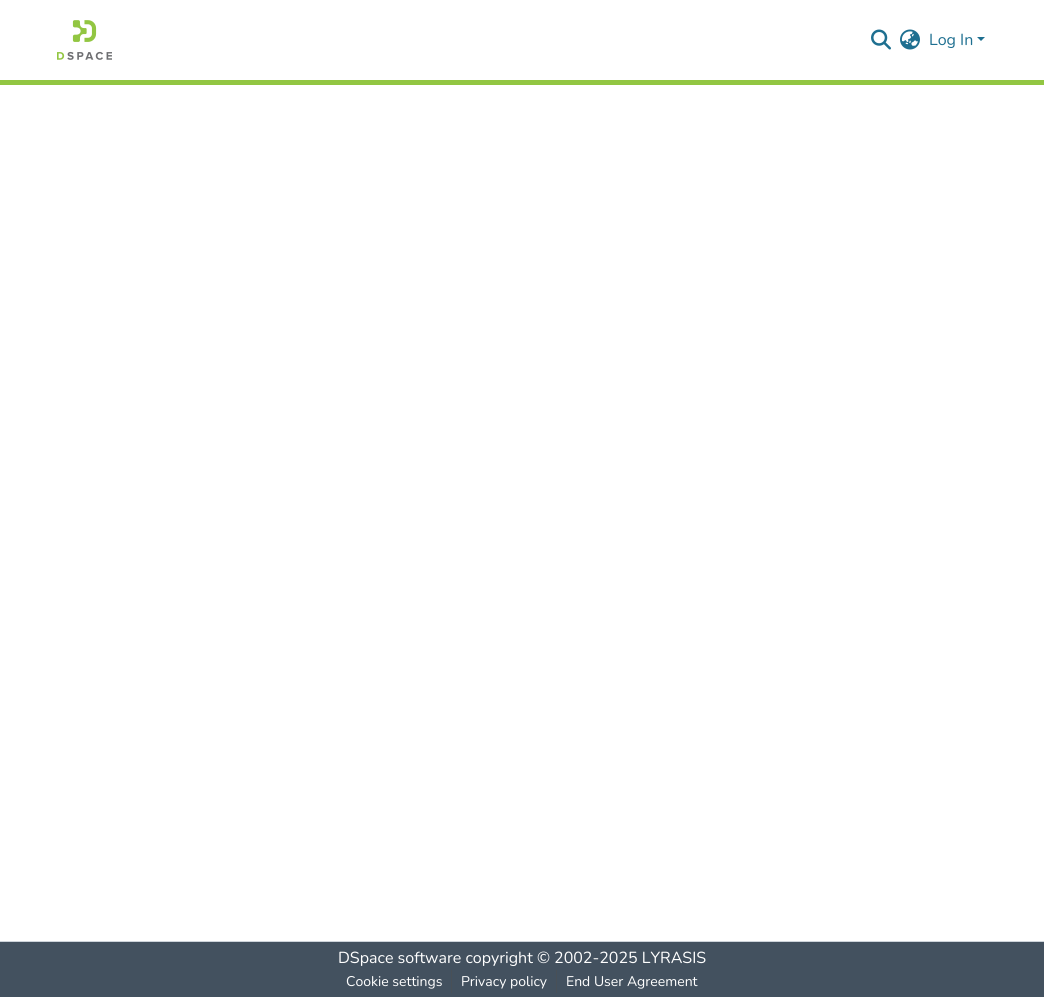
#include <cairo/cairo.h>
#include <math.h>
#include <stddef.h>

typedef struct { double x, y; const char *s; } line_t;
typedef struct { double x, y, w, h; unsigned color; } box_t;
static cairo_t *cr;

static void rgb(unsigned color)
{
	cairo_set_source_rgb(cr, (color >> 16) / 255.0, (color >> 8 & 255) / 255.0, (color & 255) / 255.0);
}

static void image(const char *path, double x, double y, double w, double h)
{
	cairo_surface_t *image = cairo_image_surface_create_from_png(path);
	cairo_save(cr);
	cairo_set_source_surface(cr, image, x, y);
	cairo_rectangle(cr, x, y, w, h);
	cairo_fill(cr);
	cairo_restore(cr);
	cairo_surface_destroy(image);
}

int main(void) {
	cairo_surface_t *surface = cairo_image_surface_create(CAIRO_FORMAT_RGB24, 1044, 997);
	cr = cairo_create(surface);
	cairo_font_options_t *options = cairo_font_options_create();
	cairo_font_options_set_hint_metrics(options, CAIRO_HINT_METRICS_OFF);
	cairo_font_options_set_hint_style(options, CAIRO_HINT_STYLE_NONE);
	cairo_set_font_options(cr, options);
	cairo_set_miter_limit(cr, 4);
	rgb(0xffffff);
	cairo_paint(cr);
	rgb(0x92c642);
	cairo_rectangle(cr, 0, 80, 1044, 5);
	cairo_fill(cr);
	image("img/1.png", 57, 20, 55, 40);
	image("img/2.png", 871, 29, 20, 21);
	image("img/3.png", 900, 29, 20, 21);
	rgb(0x1e6f90);
	cairo_new_path(cr);
	cairo_move_to(cr, 977, 37);
	cairo_line_to(cr, 985, 37);
	cairo_line_to(cr, 981, 41);
	cairo_close_path(cr);
	cairo_fill(cr);
	{
		static const box_t items[] = {
			{0, 942, 1044, 55, 0x43515f},
			{0, 941, 1044, 1, 0xced4da},
			{451, 970, 1, 23, 0x495057},
			{556, 970, 1, 23, 0x495057},
		};
		for (size_t i = 0; i < sizeof items / sizeof *items; i++) {
			rgb(items[i].color);
			cairo_rectangle(cr, items[i].x, items[i].y, items[i].w, items[i].h);
			cairo_fill(cr);
		}
	}
	cairo_select_font_face(cr, "Nunito", CAIRO_FONT_SLANT_NORMAL, CAIRO_FONT_WEIGHT_NORMAL);
	cairo_set_font_size(cr, 16);
	rgb(0x1e6f90);
	cairo_move_to(cr, 929, 45);
	cairo_show_text(cr, "Log In");
	rgb(0xffffff);
	cairo_move_to(cr, 338, 963);
	cairo_show_text(cr, "DSpace software copyright © 2002-2025 LYRASIS");
	cairo_set_font_size(cr, 14);
	{
		static const line_t items[] = {
			{346, 986, "Cookie settings"},
			{461, 986, "Privacy policy"},
			{566, 986, "End User Agreement"},
		};
		for (size_t i = 0; i < sizeof items / sizeof *items; i++) {
			cairo_move_to(cr, items[i].x, items[i].y);
			cairo_show_text(cr, items[i].s);
		}
	}
	cairo_surface_write_to_png(surface, "page.png");
	cairo_font_options_destroy(options);
	cairo_destroy(cr);
	cairo_surface_destroy(surface);
	return 0;
}
